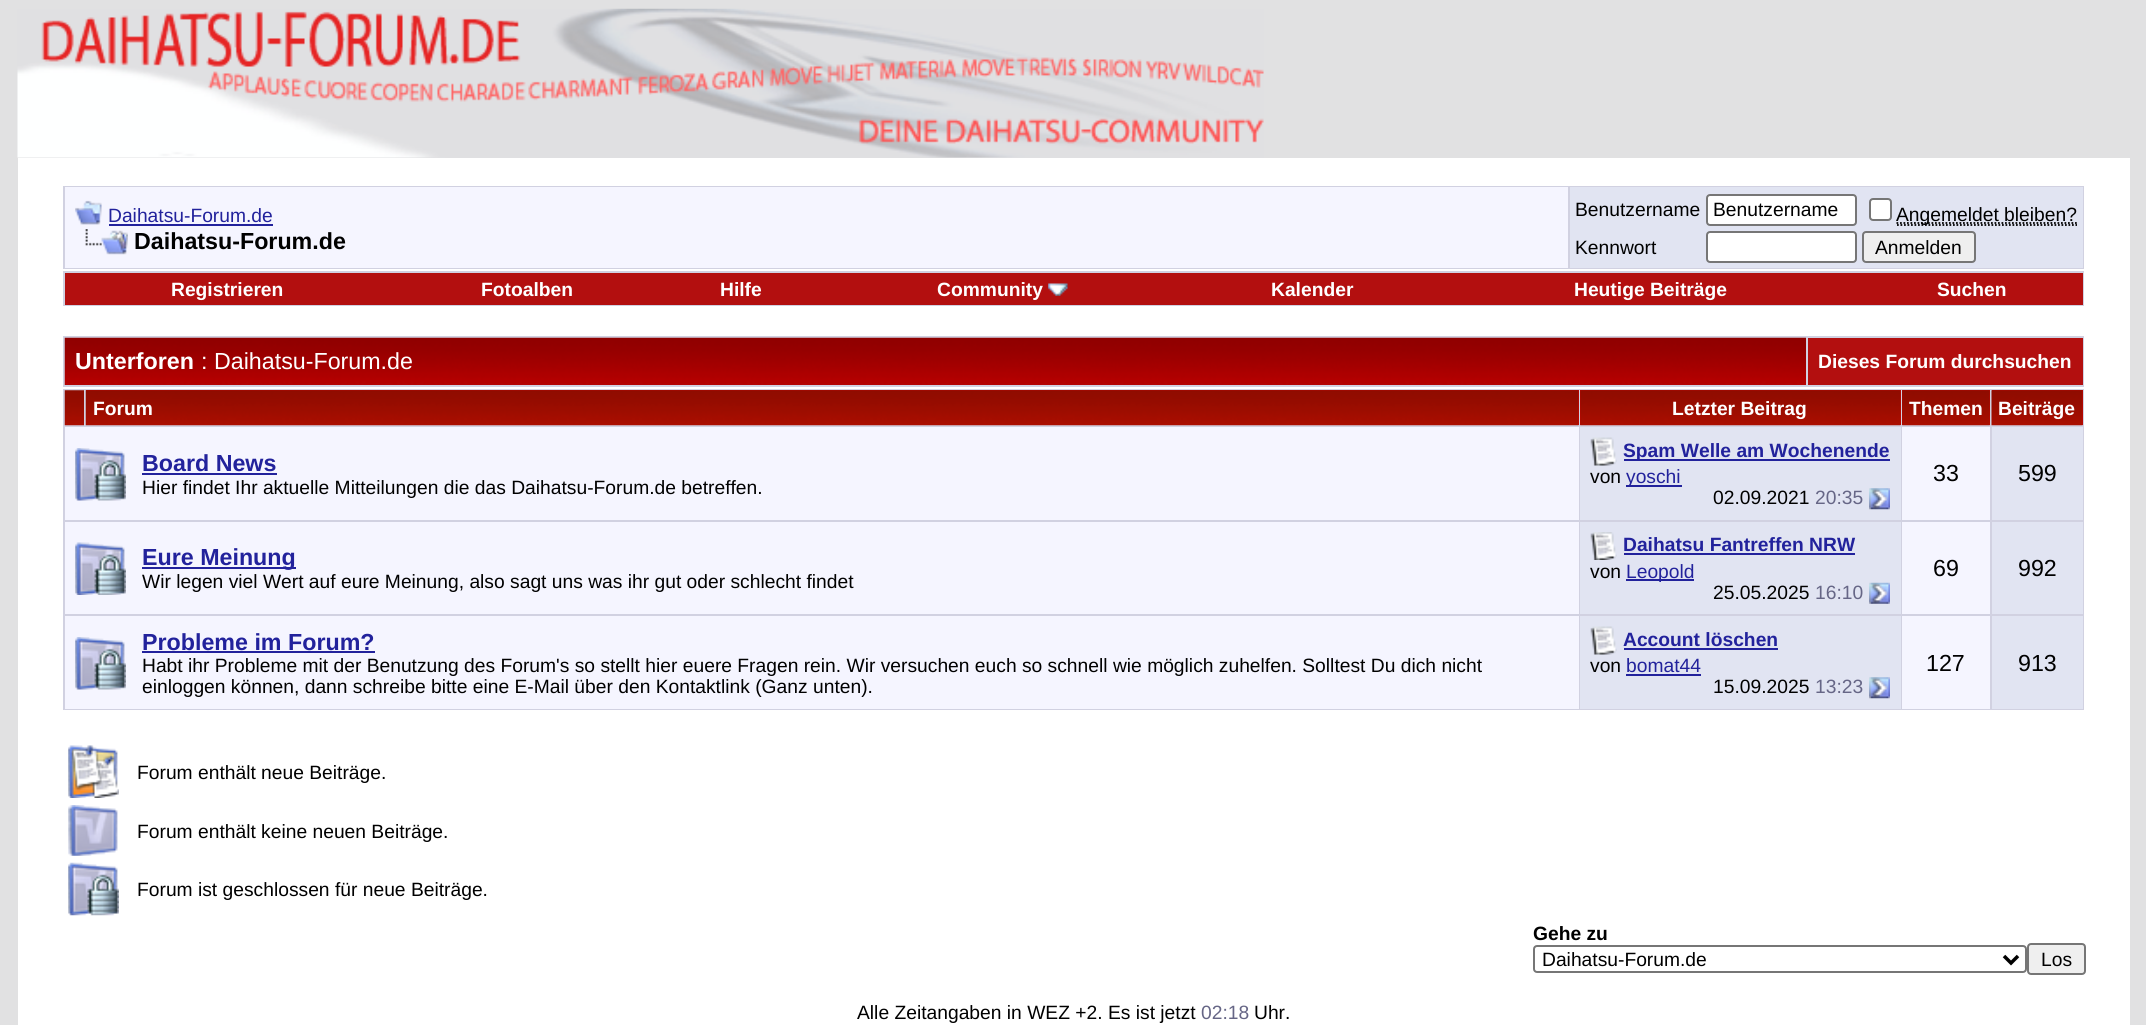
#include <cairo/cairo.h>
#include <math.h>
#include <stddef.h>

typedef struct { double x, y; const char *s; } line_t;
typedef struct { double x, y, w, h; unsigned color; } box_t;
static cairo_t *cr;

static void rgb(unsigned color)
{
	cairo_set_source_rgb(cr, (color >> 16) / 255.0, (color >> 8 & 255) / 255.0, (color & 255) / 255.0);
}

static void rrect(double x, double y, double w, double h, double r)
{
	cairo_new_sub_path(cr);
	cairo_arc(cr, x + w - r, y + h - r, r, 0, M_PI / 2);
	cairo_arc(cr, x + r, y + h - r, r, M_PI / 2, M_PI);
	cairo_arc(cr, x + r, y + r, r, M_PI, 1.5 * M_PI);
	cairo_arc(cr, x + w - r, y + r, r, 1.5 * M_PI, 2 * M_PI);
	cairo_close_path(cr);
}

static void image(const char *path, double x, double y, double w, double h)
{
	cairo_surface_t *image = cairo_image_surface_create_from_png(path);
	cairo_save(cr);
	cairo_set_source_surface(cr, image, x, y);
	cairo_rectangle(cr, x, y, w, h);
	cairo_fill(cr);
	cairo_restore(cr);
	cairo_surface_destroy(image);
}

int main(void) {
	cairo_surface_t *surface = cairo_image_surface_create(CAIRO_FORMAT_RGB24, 2146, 1025);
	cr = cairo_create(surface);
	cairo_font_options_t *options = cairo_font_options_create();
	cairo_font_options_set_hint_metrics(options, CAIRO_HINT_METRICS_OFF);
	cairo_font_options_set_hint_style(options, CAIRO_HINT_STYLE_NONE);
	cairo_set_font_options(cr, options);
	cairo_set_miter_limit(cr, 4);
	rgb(0xe1e1e2);
	cairo_paint(cr);
	image("img/1.png", 17, 8, 1247, 150);
	{
		static const box_t items[] = {
			{18, 158, 2112, 867, 0xffffff},
			{63, 186, 2021, 83, 0xd1d1e1},
			{65, 187, 1503, 81, 0xf5f5ff},
		};
		for (size_t i = 0; i < sizeof items / sizeof *items; i++) {
			rgb(items[i].color);
			cairo_rectangle(cr, items[i].x, items[i].y, items[i].w, items[i].h);
			cairo_fill(cr);
		}
	}
	image("img/2.png", 75, 200, 27, 25);
	rgb(0x22229c);
	cairo_rectangle(cr, 109, 224, 164, 2);
	cairo_fill(cr);
	image("img/3.png", 85, 229, 43, 26);
	rgb(0xe1e4f2);
	cairo_rectangle(cr, 1570, 187, 513, 81);
	cairo_fill(cr);
	rgb(0xffffff);
	rrect(1707, 195, 149, 30, 3);
	cairo_fill_preserve(cr);
	rgb(0x767676);
	cairo_stroke(cr);
	rgb(0xffffff);
	rrect(1870, 199, 21, 21, 3);
	cairo_fill_preserve(cr);
	rgb(0x767676);
	cairo_stroke(cr);
	cairo_new_path(cr);
	cairo_move_to(cr, 1897, 225);
	cairo_line_to(cr, 2077, 225);
	rgb(0x000000);
	cairo_set_line_width(cr, 1.8);
	cairo_set_dash(cr, (double[]){1.75, 1.75}, 2, 0);
	cairo_stroke(cr);
	cairo_new_path(cr);
	cairo_move_to(cr, 1896.5, 223);
	cairo_line_to(cr, 2077, 223);
	cairo_stroke(cr);
	rgb(0xffffff);
	rrect(1707, 232, 149, 30, 3);
	cairo_fill_preserve(cr);
	rgb(0x767676);
	cairo_set_line_width(cr, 2);
	cairo_set_dash(cr, NULL, 0, 0);
	cairo_stroke(cr);
	rgb(0xefefef);
	rrect(1863, 232, 112, 30, 3);
	cairo_fill_preserve(cr);
	rgb(0x767676);
	cairo_stroke(cr);
	rgb(0xd1d1e1);
	cairo_rectangle(cr, 63, 271, 2021, 35);
	cairo_fill(cr);
	rgb(0xb30f0f);
	cairo_rectangle(cr, 65, 273, 2018, 32);
	cairo_fill(cr);
	image("img/4.png", 1048, 283, 20, 13);
	rgb(0xd1d1e1);
	cairo_rectangle(cr, 63, 336, 2021, 51);
	cairo_fill(cr);
	image("img/5.png", 64, 337, 1742, 48);
	rgb(0xb30f0f);
	cairo_rectangle(cr, 1808, 338, 275, 47);
	cairo_fill(cr);
	rgb(0xd1d1e1);
	cairo_rectangle(cr, 63, 389, 2021, 321);
	cairo_fill(cr);
	image("img/6.png", 64, 390, 20, 36);
	rgb(0xcc0000);
	cairo_rectangle(cr, 86, 390, 1493, 35);
	cairo_fill(cr);
	image("img/7.png", 85, 390, 1494, 36);
	cairo_rectangle(cr, 1580, 390, 321, 35);
	cairo_fill(cr);
	image("img/8.png", 1580, 390, 321, 36);
	cairo_rectangle(cr, 1902, 390, 88, 35);
	cairo_fill(cr);
	image("img/9.png", 1902, 390, 88, 36);
	cairo_rectangle(cr, 1992, 390, 91, 35);
	cairo_fill(cr);
	image("img/10.png", 1991, 390, 92, 36);
	rgb(0xf5f5ff);
	cairo_rectangle(cr, 65, 427, 1514, 93);
	cairo_fill(cr);
	image("img/11.png", 75, 448, 51, 53);
	rgb(0x22229c);
	cairo_rectangle(cr, 142, 473, 135, 2);
	cairo_fill(cr);
	rgb(0xe1e4f2);
	cairo_rectangle(cr, 1580, 427, 321, 93);
	cairo_fill(cr);
	image("img/12.png", 1590, 437, 27, 29);
	rgb(0x22229c);
	cairo_rectangle(cr, 1624, 459, 266, 2);
	cairo_fill(cr);
	cairo_rectangle(cr, 1626, 485, 56, 2);
	cairo_fill(cr);
	image("img/13.png", 1869, 488, 21, 22);
	{
		static const box_t items[] = {
			{1902, 427, 88, 93, 0xf5f5ff},
			{1992, 427, 91, 93, 0xe1e4f2},
			{65, 522, 1514, 92, 0xf5f5ff},
		};
		for (size_t i = 0; i < sizeof items / sizeof *items; i++) {
			rgb(items[i].color);
			cairo_rectangle(cr, items[i].x, items[i].y, items[i].w, items[i].h);
			cairo_fill(cr);
		}
	}
	image("img/14.png", 75, 542, 51, 53);
	rgb(0x22229c);
	cairo_rectangle(cr, 142, 567, 154, 2);
	cairo_fill(cr);
	rgb(0xe1e4f2);
	cairo_rectangle(cr, 1580, 522, 321, 92);
	cairo_fill(cr);
	image("img/15.png", 1590, 532, 27, 28);
	rgb(0x22229c);
	cairo_rectangle(cr, 1624, 553, 231, 2);
	cairo_fill(cr);
	cairo_rectangle(cr, 1626, 579, 68, 2);
	cairo_fill(cr);
	image("img/16.png", 1869, 582, 21, 22);
	{
		static const box_t items[] = {
			{1902, 522, 88, 92, 0xf5f5ff},
			{1992, 522, 91, 92, 0xe1e4f2},
			{65, 616, 1514, 93, 0xf5f5ff},
		};
		for (size_t i = 0; i < sizeof items / sizeof *items; i++) {
			rgb(items[i].color);
			cairo_rectangle(cr, items[i].x, items[i].y, items[i].w, items[i].h);
			cairo_fill(cr);
		}
	}
	image("img/11.png", 75, 637, 51, 53);
	rgb(0x22229c);
	cairo_rectangle(cr, 142, 651, 233, 2);
	cairo_fill(cr);
	rgb(0xe1e4f2);
	cairo_rectangle(cr, 1580, 616, 321, 93);
	cairo_fill(cr);
	image("img/12.png", 1590, 626, 27, 29);
	rgb(0x22229c);
	cairo_rectangle(cr, 1624, 648, 154, 2);
	cairo_fill(cr);
	cairo_rectangle(cr, 1626, 674, 75, 2);
	cairo_fill(cr);
	image("img/13.png", 1869, 677, 21, 22);
	rgb(0xf5f5ff);
	cairo_rectangle(cr, 1902, 616, 88, 93);
	cairo_fill(cr);
	rgb(0xe1e4f2);
	cairo_rectangle(cr, 1992, 616, 91, 93);
	cairo_fill(cr);
	image("img/17.png", 68, 745, 51, 53);
	image("img/18.png", 68, 805, 50, 51);
	image("img/19.png", 68, 862, 51, 54);
	rrect(1534, 946, 492, 26, 3);
	rgb(0x767676);
	cairo_stroke(cr);
	cairo_new_path(cr);
	cairo_move_to(cr, 2004, 956);
	cairo_line_to(cr, 2011, 963);
	cairo_line_to(cr, 2018, 956);
	rgb(0x000000);
	cairo_set_line_width(cr, 3.5);
	cairo_stroke(cr);
	rgb(0xefefef);
	rrect(2028, 944, 57, 30, 3);
	cairo_fill_preserve(cr);
	rgb(0x767676);
	cairo_set_line_width(cr, 2);
	cairo_stroke(cr);
	cairo_select_font_face(cr, "Liberation Sans", CAIRO_FONT_SLANT_NORMAL, CAIRO_FONT_WEIGHT_NORMAL);
	cairo_set_font_size(cr, 19.25);
	rgb(0x22229c);
	cairo_move_to(cr, 108, 222);
	cairo_show_text(cr, "Daihatsu-Forum.de");
	cairo_select_font_face(cr, "Liberation Sans", CAIRO_FONT_SLANT_NORMAL, CAIRO_FONT_WEIGHT_BOLD);
	cairo_set_font_size(cr, 23.25);
	rgb(0x000000);
	cairo_move_to(cr, 134, 249);
	cairo_show_text(cr, "Daihatsu-Forum.de");
	cairo_select_font_face(cr, "Liberation Sans", CAIRO_FONT_SLANT_NORMAL, CAIRO_FONT_WEIGHT_NORMAL);
	cairo_set_font_size(cr, 19.25);
	{
		static const line_t items[] = {
			{1575, 216, "Benutzername"},
			{1713, 216, "Benutzername"},
			{1896, 221, "Angemeldet bleiben?"},
			{1575, 254, "Kennwort"},
			{1875, 254, "Anmelden"},
		};
		for (size_t i = 0; i < sizeof items / sizeof *items; i++) {
			cairo_move_to(cr, items[i].x, items[i].y);
			cairo_show_text(cr, items[i].s);
		}
	}
	cairo_select_font_face(cr, "Liberation Sans", CAIRO_FONT_SLANT_NORMAL, CAIRO_FONT_WEIGHT_BOLD);
	rgb(0xffffff);
	{
		static const line_t items[] = {
			{171, 296, "Registrieren"},
			{481, 296, "Fotoalben"},
			{720, 296, "Hilfe"},
			{937, 296, "Community"},
			{1271, 296, "Kalender"},
			{1574, 296, "Heutige Beiträge"},
			{1937, 296, "Suchen"},
		};
		for (size_t i = 0; i < sizeof items / sizeof *items; i++) {
			cairo_move_to(cr, items[i].x, items[i].y);
			cairo_show_text(cr, items[i].s);
		}
	}
	cairo_set_font_size(cr, 23.25);
	cairo_move_to(cr, 75, 369);
	cairo_show_text(cr, "Unterforen");
	cairo_select_font_face(cr, "Liberation Sans", CAIRO_FONT_SLANT_NORMAL, CAIRO_FONT_WEIGHT_NORMAL);
	cairo_move_to(cr, 201, 369);
	cairo_show_text(cr, ": Daihatsu-Forum.de");
	cairo_select_font_face(cr, "Liberation Sans", CAIRO_FONT_SLANT_NORMAL, CAIRO_FONT_WEIGHT_BOLD);
	cairo_set_font_size(cr, 19.25);
	{
		static const line_t items[] = {
			{1818, 368, "Dieses Forum durchsuchen"},
			{93, 415, "Forum"},
			{1672, 415, "Letzter Beitrag"},
			{1909, 415, "Themen"},
			{1998, 415, "Beiträge"},
		};
		for (size_t i = 0; i < sizeof items / sizeof *items; i++) {
			cairo_move_to(cr, items[i].x, items[i].y);
			cairo_show_text(cr, items[i].s);
		}
	}
	cairo_set_font_size(cr, 23.25);
	rgb(0x22229c);
	cairo_move_to(cr, 142, 471);
	cairo_show_text(cr, "Board News");
	cairo_select_font_face(cr, "Liberation Sans", CAIRO_FONT_SLANT_NORMAL, CAIRO_FONT_WEIGHT_NORMAL);
	cairo_set_font_size(cr, 19.25);
	rgb(0x000000);
	cairo_move_to(cr, 142, 494);
	cairo_show_text(cr, "Hier findet Ihr aktuelle Mitteilungen die das Daihatsu-Forum.de betreffen.");
	cairo_select_font_face(cr, "Liberation Sans", CAIRO_FONT_SLANT_NORMAL, CAIRO_FONT_WEIGHT_BOLD);
	rgb(0x22229c);
	cairo_move_to(cr, 1623, 457);
	cairo_show_text(cr, "Spam Welle am Wochenende");
	cairo_select_font_face(cr, "Liberation Sans", CAIRO_FONT_SLANT_NORMAL, CAIRO_FONT_WEIGHT_NORMAL);
	rgb(0x000000);
	cairo_move_to(cr, 1590, 483);
	cairo_show_text(cr, "von");
	rgb(0x22229c);
	cairo_move_to(cr, 1626, 483);
	cairo_show_text(cr, "yoschi");
	rgb(0x000000);
	cairo_move_to(cr, 1713, 504);
	cairo_show_text(cr, "02.09.2021");
	rgb(0x666686);
	cairo_move_to(cr, 1815, 504);
	cairo_show_text(cr, "20:35");
	cairo_set_font_size(cr, 23.25);
	rgb(0x000000);
	cairo_move_to(cr, 1933, 481);
	cairo_show_text(cr, "33");
	cairo_move_to(cr, 2018, 481);
	cairo_show_text(cr, "599");
	cairo_select_font_face(cr, "Liberation Sans", CAIRO_FONT_SLANT_NORMAL, CAIRO_FONT_WEIGHT_BOLD);
	rgb(0x22229c);
	cairo_move_to(cr, 142, 565);
	cairo_show_text(cr, "Eure Meinung");
	cairo_select_font_face(cr, "Liberation Sans", CAIRO_FONT_SLANT_NORMAL, CAIRO_FONT_WEIGHT_NORMAL);
	cairo_set_font_size(cr, 19.25);
	rgb(0x000000);
	cairo_move_to(cr, 142, 588);
	cairo_show_text(cr, "Wir legen viel Wert auf eure Meinung, also sagt uns was ihr gut oder schlecht findet");
	cairo_select_font_face(cr, "Liberation Sans", CAIRO_FONT_SLANT_NORMAL, CAIRO_FONT_WEIGHT_BOLD);
	rgb(0x22229c);
	cairo_move_to(cr, 1623, 551);
	cairo_show_text(cr, "Daihatsu Fantreffen NRW");
	cairo_select_font_face(cr, "Liberation Sans", CAIRO_FONT_SLANT_NORMAL, CAIRO_FONT_WEIGHT_NORMAL);
	rgb(0x000000);
	cairo_move_to(cr, 1590, 578);
	cairo_show_text(cr, "von");
	rgb(0x22229c);
	cairo_move_to(cr, 1626, 578);
	cairo_show_text(cr, "Leopold");
	rgb(0x000000);
	cairo_move_to(cr, 1713, 599);
	cairo_show_text(cr, "25.05.2025");
	rgb(0x666686);
	cairo_move_to(cr, 1815, 599);
	cairo_show_text(cr, "16:10");
	cairo_set_font_size(cr, 23.25);
	rgb(0x000000);
	cairo_move_to(cr, 1933, 576);
	cairo_show_text(cr, "69");
	cairo_move_to(cr, 2018, 576);
	cairo_show_text(cr, "992");
	cairo_select_font_face(cr, "Liberation Sans", CAIRO_FONT_SLANT_NORMAL, CAIRO_FONT_WEIGHT_BOLD);
	rgb(0x22229c);
	cairo_move_to(cr, 142, 650);
	cairo_show_text(cr, "Probleme im Forum?");
	cairo_select_font_face(cr, "Liberation Sans", CAIRO_FONT_SLANT_NORMAL, CAIRO_FONT_WEIGHT_NORMAL);
	cairo_set_font_size(cr, 19.25);
	rgb(0x000000);
	cairo_move_to(cr, 142, 672);
	cairo_show_text(cr, "Habt ihr Probleme mit der Benutzung des Forum's so stellt hier euere Fragen rein. Wir versuchen euch so schnell wie möglich zuhelfen. Solltest Du dich nicht");
	cairo_move_to(cr, 142, 693);
	cairo_show_text(cr, "einloggen können, dann schreibe bitte eine E-Mail über den Kontaktlink (Ganz unten).");
	cairo_select_font_face(cr, "Liberation Sans", CAIRO_FONT_SLANT_NORMAL, CAIRO_FONT_WEIGHT_BOLD);
	rgb(0x22229c);
	cairo_move_to(cr, 1623, 646);
	cairo_show_text(cr, "Account löschen");
	cairo_select_font_face(cr, "Liberation Sans", CAIRO_FONT_SLANT_NORMAL, CAIRO_FONT_WEIGHT_NORMAL);
	rgb(0x000000);
	cairo_move_to(cr, 1590, 672);
	cairo_show_text(cr, "von");
	rgb(0x22229c);
	cairo_move_to(cr, 1626, 672);
	cairo_show_text(cr, "bomat44");
	rgb(0x000000);
	cairo_move_to(cr, 1713, 693);
	cairo_show_text(cr, "15.09.2025");
	rgb(0x666686);
	cairo_move_to(cr, 1815, 693);
	cairo_show_text(cr, "13:23");
	cairo_set_font_size(cr, 23.25);
	rgb(0x000000);
	cairo_move_to(cr, 1926, 671);
	cairo_show_text(cr, "127");
	cairo_move_to(cr, 2018, 671);
	cairo_show_text(cr, "913");
	cairo_set_font_size(cr, 19.25);
	{
		static const line_t items[] = {
			{137, 779, "Forum enthält neue Beiträge."},
			{137, 838, "Forum enthält keine neuen Beiträge."},
			{137, 896, "Forum ist geschlossen für neue Beiträge."},
		};
		for (size_t i = 0; i < sizeof items / sizeof *items; i++) {
			cairo_move_to(cr, items[i].x, items[i].y);
			cairo_show_text(cr, items[i].s);
		}
	}
	cairo_select_font_face(cr, "Liberation Sans", CAIRO_FONT_SLANT_NORMAL, CAIRO_FONT_WEIGHT_BOLD);
	cairo_move_to(cr, 1533, 940);
	cairo_show_text(cr, "Gehe zu");
	cairo_select_font_face(cr, "Liberation Sans", CAIRO_FONT_SLANT_NORMAL, CAIRO_FONT_WEIGHT_NORMAL);
	{
		static const line_t items[] = {
			{1542, 966, "Daihatsu-Forum.de"},
			{2041, 966, "Los"},
			{857, 1019, "Alle Zeitangaben in WEZ +2. Es ist jetzt"},
		};
		for (size_t i = 0; i < sizeof items / sizeof *items; i++) {
			cairo_move_to(cr, items[i].x, items[i].y);
			cairo_show_text(cr, items[i].s);
		}
	}
	rgb(0x666686);
	cairo_move_to(cr, 1201, 1019);
	cairo_show_text(cr, "02:18");
	rgb(0x000000);
	cairo_move_to(cr, 1254, 1019);
	cairo_show_text(cr, "Uhr.");
	cairo_surface_write_to_png(surface, "page.png");
	cairo_font_options_destroy(options);
	cairo_destroy(cr);
	cairo_surface_destroy(surface);
	return 0;
}
